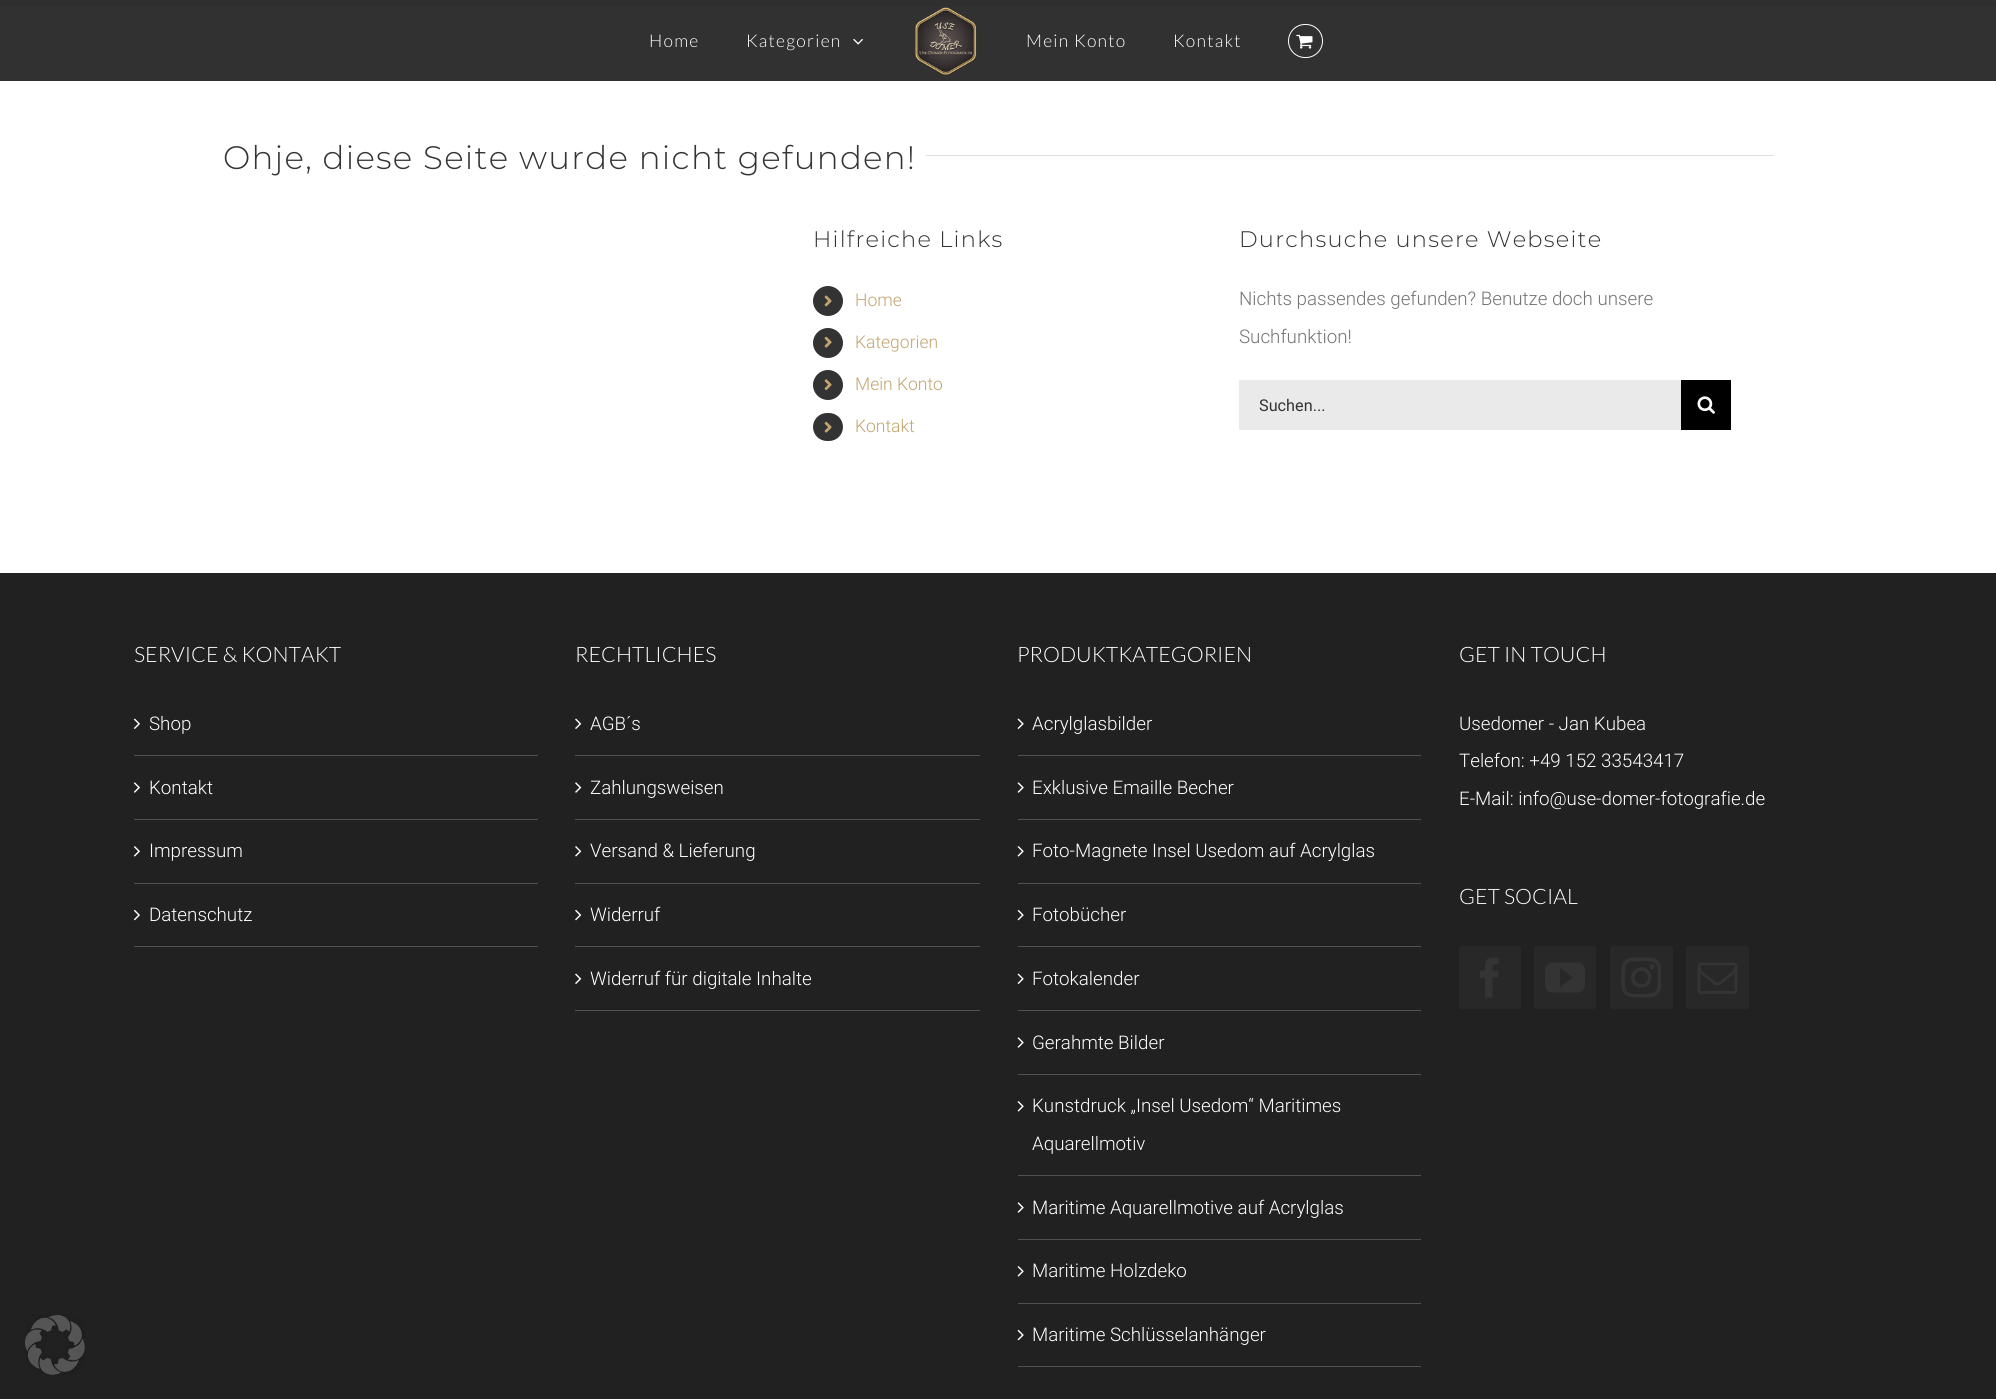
#include <cairo/cairo.h>
#include <math.h>
#include <stddef.h>

typedef struct { double x, y; const char *s; } line_t;
static cairo_t *cr;

static void rgb(unsigned color)
{
	cairo_set_source_rgb(cr, (color >> 16) / 255.0, (color >> 8 & 255) / 255.0, (color & 255) / 255.0);
}

static void tracked(double x, double y, const char *s, double letter, double word)
{
	cairo_move_to(cr, x, y);
	while (*s) {
		char ch[5] = {0};
		int n = 0;
		do ch[n++] = *s++; while ((*s & 0xC0) == 0x80);
		cairo_show_text(cr, ch);
		cairo_rel_move_to(cr, letter + word * (*ch == ' '), 0);
	}
}

static void rrect(double x, double y, double w, double h, double r)
{
	cairo_new_sub_path(cr);
	cairo_arc(cr, x + w - r, y + h - r, r, 0, M_PI / 2);
	cairo_arc(cr, x + r, y + h - r, r, M_PI / 2, M_PI);
	cairo_arc(cr, x + r, y + r, r, M_PI, 1.5 * M_PI);
	cairo_arc(cr, x + w - r, y + r, r, 1.5 * M_PI, 2 * M_PI);
	cairo_close_path(cr);
}

static void image(const char *path, double x, double y, double w, double h)
{
	cairo_surface_t *image = cairo_image_surface_create_from_png(path);
	cairo_save(cr);
	cairo_set_source_surface(cr, image, x, y);
	cairo_rectangle(cr, x, y, w, h);
	cairo_fill(cr);
	cairo_restore(cr);
	cairo_surface_destroy(image);
}

int main(void) {
	cairo_surface_t *surface = cairo_image_surface_create(CAIRO_FORMAT_RGB24, 1996, 1399);
	cr = cairo_create(surface);
	cairo_font_options_t *options = cairo_font_options_create();
	cairo_font_options_set_hint_metrics(options, CAIRO_HINT_METRICS_OFF);
	cairo_font_options_set_hint_style(options, CAIRO_HINT_STYLE_NONE);
	cairo_set_font_options(cr, options);
	cairo_set_miter_limit(cr, 4);
	rgb(0xffffff);
	cairo_paint(cr);
	rgb(0x313131);
	cairo_rectangle(cr, 0, 6, 1996, 75);
	cairo_fill(cr);
	rgb(0x212121);
	cairo_rectangle(cr, 0, 573, 1996, 826);
	cairo_fill(cr);
	image("img/1.png", 25, 1315, 60, 60);
	rgb(0x2f2f2f);
	cairo_rectangle(cr, 0, 0, 1996, 6);
	cairo_fill(cr);
	image("img/2.png", 853, 38, 10, 7);
	image("img/3.png", 915, 7, 62, 68);
	rrect(1288.5, 24.5, 34, 33, 16.5);
	rgb(0xffffff);
	cairo_set_line_width(cr, 1);
	cairo_stroke(cr);
	image("img/4.png", 1296, 34, 17, 15);
	rgb(0xe0dede);
	cairo_rectangle(cr, 926, 155, 848, 1);
	cairo_fill(cr);
	rgb(0x333333);
	cairo_arc(cr, 828, 301, 15, 0, 2 * M_PI);
	cairo_fill(cr);
	image("img/5.png", 824, 295, 8, 12);
	cairo_arc(cr, 828, 343, 15, 0, 2 * M_PI);
	cairo_fill(cr);
	image("img/6.png", 824, 336, 8, 12);
	cairo_arc(cr, 828, 385, 15, 0, 2 * M_PI);
	cairo_fill(cr);
	image("img/7.png", 824, 379, 8, 12);
	rrect(813, 413, 30, 28, 14);
	cairo_fill(cr);
	image("img/6.png", 824, 421, 8, 12);
	rgb(0xeaeaea);
	cairo_rectangle(cr, 1239, 380, 442, 50);
	cairo_fill(cr);
	rgb(0x000000);
	cairo_rectangle(cr, 1681, 380, 50, 50);
	cairo_fill(cr);
	image("img/8.png", 1697, 396, 18, 18);
	rgb(0x505152);
	cairo_rectangle(cr, 134, 755, 404, 1);
	cairo_fill(cr);
	image("img/9.png", 133, 718, 7, 11);
	cairo_rectangle(cr, 134, 819, 404, 1);
	cairo_fill(cr);
	image("img/10.png", 133, 782, 7, 11);
	cairo_rectangle(cr, 134, 883, 404, 1);
	cairo_fill(cr);
	image("img/11.png", 133, 846, 7, 11);
	cairo_rectangle(cr, 134, 946, 404, 1);
	cairo_fill(cr);
	image("img/12.png", 133, 909, 7, 12);
	cairo_rectangle(cr, 575, 755, 405, 1);
	cairo_fill(cr);
	image("img/13.png", 575, 718, 7, 11);
	cairo_rectangle(cr, 575, 819, 405, 1);
	cairo_fill(cr);
	image("img/14.png", 575, 782, 7, 11);
	cairo_rectangle(cr, 575, 883, 405, 1);
	cairo_fill(cr);
	image("img/15.png", 575, 846, 7, 11);
	cairo_rectangle(cr, 575, 946, 405, 1);
	cairo_fill(cr);
	image("img/16.png", 575, 909, 7, 12);
	cairo_rectangle(cr, 575, 1010, 405, 1);
	cairo_fill(cr);
	image("img/13.png", 575, 973, 7, 11);
	cairo_rectangle(cr, 1018, 755, 403, 1);
	cairo_fill(cr);
	image("img/17.png", 1017, 718, 7, 11);
	cairo_rectangle(cr, 1018, 819, 403, 1);
	cairo_fill(cr);
	image("img/18.png", 1017, 782, 7, 11);
	cairo_rectangle(cr, 1018, 883, 403, 1);
	cairo_fill(cr);
	image("img/19.png", 1017, 846, 7, 11);
	cairo_rectangle(cr, 1018, 946, 403, 1);
	cairo_fill(cr);
	image("img/20.png", 1017, 909, 7, 12);
	cairo_rectangle(cr, 1018, 1010, 403, 1);
	cairo_fill(cr);
	image("img/17.png", 1017, 973, 7, 11);
	cairo_rectangle(cr, 1018, 1074, 403, 1);
	cairo_fill(cr);
	image("img/18.png", 1017, 1037, 7, 11);
	cairo_rectangle(cr, 1018, 1175, 403, 1);
	cairo_fill(cr);
	image("img/19.png", 1017, 1101, 7, 11);
	cairo_rectangle(cr, 1018, 1239, 403, 1);
	cairo_fill(cr);
	image("img/18.png", 1017, 1202, 7, 11);
	cairo_rectangle(cr, 1018, 1303, 403, 1);
	cairo_fill(cr);
	image("img/19.png", 1017, 1266, 7, 11);
	cairo_rectangle(cr, 1018, 1366, 403, 1);
	cairo_fill(cr);
	image("img/20.png", 1017, 1329, 7, 12);
	rgb(0x282828);
	rrect(1459, 946, 62, 63, 2.5);
	cairo_fill(cr);
	image("img/21.png", 1480, 957, 19, 41);
	rrect(1534, 946, 62, 63, 2.5);
	cairo_fill(cr);
	image("img/22.png", 1545, 962, 40, 31);
	rrect(1610, 946, 63, 63, 2.5);
	cairo_fill(cr);
	image("img/23.png", 1621, 957, 40, 41);
	rrect(1686, 946, 63, 63, 2.5);
	cairo_fill(cr);
	image("img/24.png", 1697, 962, 41, 32);
	cairo_select_font_face(cr, "Lato Light", CAIRO_FONT_SLANT_NORMAL, CAIRO_FONT_WEIGHT_NORMAL);
	cairo_set_font_size(cr, 17.5);
	rgb(0xffffff);
	{
		static const line_t items[] = {
			{649, 47, "Home"},
			{746, 47, "Kategorien"},
			{1026, 47, "Mein Konto"},
			{1173, 47, "Kontakt"},
		};
		for (size_t i = 0; i < sizeof items / sizeof *items; i++) {
			tracked(items[i].x, items[i].y, items[i].s, 1.25, 0);
		}
	}
	cairo_select_font_face(cr, "Montserrat Light", CAIRO_FONT_SLANT_NORMAL, CAIRO_FONT_WEIGHT_NORMAL);
	cairo_set_font_size(cr, 32.5);
	rgb(0x333333);
	tracked(223, 169, "Ohje, diese Seite wurde nicht gefunden!", 1.25, 0);
	cairo_set_font_size(cr, 22.5);
	tracked(813, 247, "Hilfreiche Links", 1.25, 0);
	cairo_select_font_face(cr, "Roboto Light", CAIRO_FONT_SLANT_NORMAL, CAIRO_FONT_WEIGHT_NORMAL);
	cairo_set_font_size(cr, 17.5);
	rgb(0xc2a46e);
	{
		static const line_t items[] = {
			{855, 306, "Home"},
			{855, 348, "Kategorien"},
			{855, 390, "Mein Konto"},
			{855, 432, "Kontakt"},
		};
		for (size_t i = 0; i < sizeof items / sizeof *items; i++) {
			cairo_move_to(cr, items[i].x, items[i].y);
			cairo_show_text(cr, items[i].s);
		}
	}
	cairo_select_font_face(cr, "Montserrat Light", CAIRO_FONT_SLANT_NORMAL, CAIRO_FONT_WEIGHT_NORMAL);
	cairo_set_font_size(cr, 22.5);
	rgb(0x333333);
	tracked(1239, 247, "Durchsuche unsere Webseite", 1.25, 0);
	cairo_select_font_face(cr, "Roboto Light", CAIRO_FONT_SLANT_NORMAL, CAIRO_FONT_WEIGHT_NORMAL);
	cairo_set_font_size(cr, 18.75);
	rgb(0x747474);
	cairo_move_to(cr, 1239, 305);
	cairo_show_text(cr, "Nichts passendes gefunden? Benutze doch unsere");
	cairo_move_to(cr, 1239, 343);
	cairo_show_text(cr, "Suchfunktion!");
	cairo_select_font_face(cr, "Roboto", CAIRO_FONT_SLANT_NORMAL, CAIRO_FONT_WEIGHT_NORMAL);
	cairo_set_font_size(cr, 16.25);
	rgb(0x333333);
	cairo_move_to(cr, 1259, 411);
	cairo_show_text(cr, "Suchen...");
	cairo_select_font_face(cr, "Lato Light", CAIRO_FONT_SLANT_NORMAL, CAIRO_FONT_WEIGHT_NORMAL);
	cairo_set_font_size(cr, 21.25);
	rgb(0xffffff);
	cairo_move_to(cr, 134, 662);
	cairo_show_text(cr, "SERVICE & KONTAKT");
	cairo_select_font_face(cr, "Roboto Light", CAIRO_FONT_SLANT_NORMAL, CAIRO_FONT_WEIGHT_NORMAL);
	cairo_set_font_size(cr, 18.75);
	{
		static const line_t items[] = {
			{149, 730, "Shop"},
			{149, 794, "Kontakt"},
			{149, 857, "Impressum"},
			{149, 921, "Datenschutz"},
		};
		for (size_t i = 0; i < sizeof items / sizeof *items; i++) {
			cairo_move_to(cr, items[i].x, items[i].y);
			cairo_show_text(cr, items[i].s);
		}
	}
	cairo_select_font_face(cr, "Lato Light", CAIRO_FONT_SLANT_NORMAL, CAIRO_FONT_WEIGHT_NORMAL);
	cairo_set_font_size(cr, 21.25);
	cairo_move_to(cr, 575, 662);
	cairo_show_text(cr, "RECHTLICHES");
	cairo_select_font_face(cr, "Roboto Light", CAIRO_FONT_SLANT_NORMAL, CAIRO_FONT_WEIGHT_NORMAL);
	cairo_set_font_size(cr, 18.75);
	{
		static const line_t items[] = {
			{590, 730, "AGB´s"},
			{590, 794, "Zahlungsweisen"},
			{590, 857, "Versand & Lieferung"},
			{590, 921, "Widerruf"},
			{590, 985, "Widerruf für digitale Inhalte"},
		};
		for (size_t i = 0; i < sizeof items / sizeof *items; i++) {
			cairo_move_to(cr, items[i].x, items[i].y);
			cairo_show_text(cr, items[i].s);
		}
	}
	cairo_select_font_face(cr, "Lato Light", CAIRO_FONT_SLANT_NORMAL, CAIRO_FONT_WEIGHT_NORMAL);
	cairo_set_font_size(cr, 21.25);
	cairo_move_to(cr, 1017, 662);
	cairo_show_text(cr, "PRODUKTKATEGORIEN");
	cairo_select_font_face(cr, "Roboto Light", CAIRO_FONT_SLANT_NORMAL, CAIRO_FONT_WEIGHT_NORMAL);
	cairo_set_font_size(cr, 18.75);
	{
		static const line_t items[] = {
			{1032, 730, "Acrylglasbilder"},
			{1032, 794, "Exklusive Emaille Becher"},
			{1032, 857, "Foto-Magnete Insel Usedom auf Acrylglas"},
			{1032, 921, "Fotobücher"},
			{1032, 985, "Fotokalender"},
			{1032, 1049, "Gerahmte Bilder"},
			{1032, 1112, "Kunstdruck „Insel Usedom“ Maritimes"},
			{1032, 1150, "Aquarellmotiv"},
			{1032, 1214, "Maritime Aquarellmotive auf Acrylglas"},
			{1032, 1277, "Maritime Holzdeko"},
			{1032, 1341, "Maritime Schlüsselanhänger"},
		};
		for (size_t i = 0; i < sizeof items / sizeof *items; i++) {
			cairo_move_to(cr, items[i].x, items[i].y);
			cairo_show_text(cr, items[i].s);
		}
	}
	cairo_select_font_face(cr, "Lato Light", CAIRO_FONT_SLANT_NORMAL, CAIRO_FONT_WEIGHT_NORMAL);
	cairo_set_font_size(cr, 21.25);
	cairo_move_to(cr, 1459, 662);
	cairo_show_text(cr, "GET IN TOUCH");
	cairo_select_font_face(cr, "Roboto Light", CAIRO_FONT_SLANT_NORMAL, CAIRO_FONT_WEIGHT_NORMAL);
	cairo_set_font_size(cr, 18.75);
	{
		static const line_t items[] = {
			{1459, 730, "Usedomer - Jan Kubea"},
			{1459, 767, "Telefon: +49 152 33543417"},
			{1459, 805, "E-Mail: info@use-domer-fotografie.de"},
		};
		for (size_t i = 0; i < sizeof items / sizeof *items; i++) {
			cairo_move_to(cr, items[i].x, items[i].y);
			cairo_show_text(cr, items[i].s);
		}
	}
	cairo_select_font_face(cr, "Lato Light", CAIRO_FONT_SLANT_NORMAL, CAIRO_FONT_WEIGHT_NORMAL);
	cairo_set_font_size(cr, 21.25);
	cairo_move_to(cr, 1459, 904);
	cairo_show_text(cr, "GET SOCIAL");
	cairo_surface_write_to_png(surface, "page.png");
	cairo_font_options_destroy(options);
	cairo_destroy(cr);
	cairo_surface_destroy(surface);
	return 0;
}
